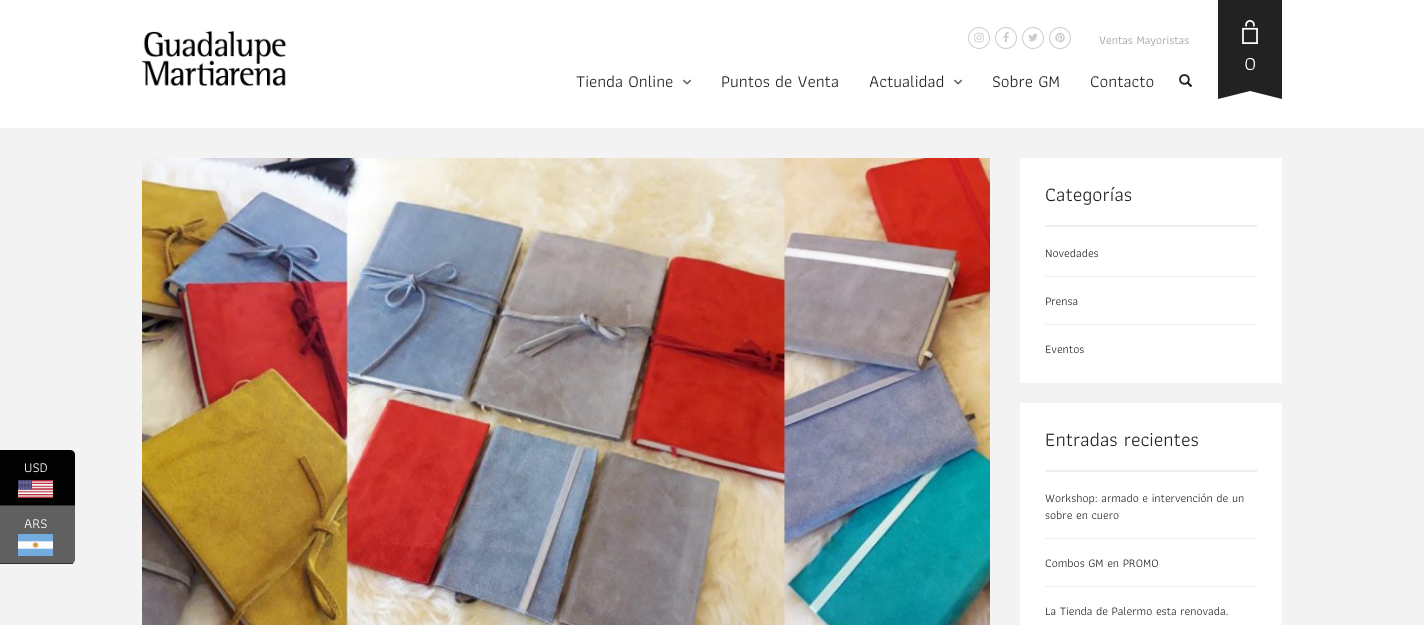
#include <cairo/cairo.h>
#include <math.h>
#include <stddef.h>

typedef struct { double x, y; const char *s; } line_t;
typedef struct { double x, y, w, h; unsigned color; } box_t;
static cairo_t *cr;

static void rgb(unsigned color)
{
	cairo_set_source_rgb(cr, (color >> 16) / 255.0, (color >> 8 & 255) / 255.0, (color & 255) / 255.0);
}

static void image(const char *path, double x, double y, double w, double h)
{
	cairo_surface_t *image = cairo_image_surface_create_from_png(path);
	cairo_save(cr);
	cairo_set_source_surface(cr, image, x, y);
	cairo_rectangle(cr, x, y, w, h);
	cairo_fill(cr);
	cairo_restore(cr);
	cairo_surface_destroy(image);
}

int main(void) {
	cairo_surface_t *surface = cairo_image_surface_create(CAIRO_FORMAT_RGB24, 1424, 625);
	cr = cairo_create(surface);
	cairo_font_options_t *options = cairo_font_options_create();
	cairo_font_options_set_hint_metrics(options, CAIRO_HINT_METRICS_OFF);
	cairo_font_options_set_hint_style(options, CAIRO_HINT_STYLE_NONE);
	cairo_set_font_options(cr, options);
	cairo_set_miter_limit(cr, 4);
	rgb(0xf3f3f3);
	cairo_paint(cr);
	rgb(0x020202);
	cairo_new_path(cr);
	cairo_move_to(cr, 0, 450);
	cairo_line_to(cr, 70, 450);
	cairo_curve_to(cr, 73, 450, 75, 452, 75, 455);
	cairo_line_to(cr, 75, 506);
	cairo_line_to(cr, 0, 506);
	cairo_close_path(cr);
	cairo_fill(cr);
	rgb(0x333333);
	cairo_rectangle(cr, 0, 505, 75, 1);
	cairo_fill(cr);
	image("img/1.png", 18, 480, 35, 18);
	rgb(0x606060);
	cairo_new_path(cr);
	cairo_move_to(cr, 0, 506);
	cairo_line_to(cr, 75, 506);
	cairo_line_to(cr, 75, 559);
	cairo_curve_to(cr, 75, 562, 73, 564, 70, 564);
	cairo_line_to(cr, 0, 564);
	cairo_close_path(cr);
	cairo_fill(cr);
	rgb(0x333333);
	cairo_rectangle(cr, 0, 563, 73, 1);
	cairo_fill(cr);
	image("img/2.png", 18, 534, 35, 22);
	rgb(0xffffff);
	cairo_rectangle(cr, 0, 0, 1424, 128);
	cairo_fill(cr);
	image("img/3.png", 142, 31, 145, 55);
	cairo_arc(cr, 979, 38, 10.5, 0, 2 * M_PI);
	rgb(0xcccccc);
	cairo_set_line_width(cr, 1);
	cairo_stroke(cr);
	image("img/4.png", 974, 32, 10, 11);
	cairo_arc(cr, 1006, 38, 10.5, 0, 2 * M_PI);
	cairo_stroke(cr);
	image("img/5.png", 1003, 32, 6, 11);
	cairo_arc(cr, 1033, 38, 10.5, 0, 2 * M_PI);
	cairo_stroke(cr);
	image("img/6.png", 1028, 33, 10, 9);
	cairo_arc(cr, 1060, 38, 10.5, 0, 2 * M_PI);
	cairo_stroke(cr);
	image("img/7.png", 1055, 32, 10, 11);
	image("img/8.png", 683, 79, 9, 6);
	image("img/8.png", 954, 79, 9, 6);
	image("img/9.png", 1179, 74, 14, 13);
	rgb(0x222222);
	cairo_rectangle(cr, 1218, 0, 64, 91);
	cairo_fill(cr);
	image("img/10.png", 1242, 20, 16, 24);
	cairo_new_path(cr);
	cairo_move_to(cr, 1282, 83);
	cairo_line_to(cr, 1282, 99);
	cairo_line_to(cr, 1250, 91);
	cairo_close_path(cr);
	cairo_fill(cr);
	cairo_new_path(cr);
	cairo_move_to(cr, 1218, 99);
	cairo_line_to(cr, 1218, 83);
	cairo_line_to(cr, 1250, 91);
	cairo_close_path(cr);
	cairo_fill(cr);
	image("img/11.png", 142, 158, 848, 467);
	{
		static const box_t items[] = {
			{1020, 158, 262, 225, 0xffffff},
			{1045, 225, 212, 2, 0xeeeeee},
			{1045, 276, 212, 1, 0xeeeeee},
			{1045, 324, 212, 1, 0xeeeeee},
			{1020, 403, 262, 222, 0xffffff},
			{1045, 470, 212, 2, 0xeeeeee},
			{1045, 538, 212, 1, 0xeeeeee},
			{1045, 586, 212, 1, 0xeeeeee},
		};
		for (size_t i = 0; i < sizeof items / sizeof *items; i++) {
			rgb(items[i].color);
			cairo_rectangle(cr, items[i].x, items[i].y, items[i].w, items[i].h);
			cairo_fill(cr);
		}
	}
	cairo_select_font_face(cr, "Athiti", CAIRO_FONT_SLANT_NORMAL, CAIRO_FONT_WEIGHT_NORMAL);
	cairo_set_font_size(cr, 14);
	rgb(0xffffff);
	cairo_move_to(cr, 24, 472);
	cairo_show_text(cr, "USD");
	cairo_move_to(cr, 24, 528);
	cairo_show_text(cr, "ARS");
	cairo_set_font_size(cr, 12);
	rgb(0x999999);
	cairo_move_to(cr, 1099, 44);
	cairo_show_text(cr, "Ventas Mayoristas");
	cairo_set_font_size(cr, 17.25);
	rgb(0x222222);
	{
		static const line_t items[] = {
			{576, 87, "Tienda Online"},
			{721, 87, "Puntos de Venta"},
			{869, 87, "Actualidad"},
			{992, 87, "Sobre GM"},
			{1090, 87, "Contacto"},
		};
		for (size_t i = 0; i < sizeof items / sizeof *items; i++) {
			cairo_move_to(cr, items[i].x, items[i].y);
			cairo_show_text(cr, items[i].s);
		}
	}
	cairo_set_font_size(cr, 20);
	rgb(0xffffff);
	cairo_move_to(cr, 1244, 70);
	cairo_show_text(cr, "0");
	rgb(0x222222);
	cairo_move_to(cr, 1045, 201);
	cairo_show_text(cr, "Categorías");
	cairo_set_font_size(cr, 12);
	{
		static const line_t items[] = {
			{1045, 257, "Novedades"},
			{1045, 305, "Prensa"},
			{1045, 353, "Eventos"},
		};
		for (size_t i = 0; i < sizeof items / sizeof *items; i++) {
			cairo_move_to(cr, items[i].x, items[i].y);
			cairo_show_text(cr, items[i].s);
		}
	}
	cairo_set_font_size(cr, 20);
	cairo_move_to(cr, 1045, 446);
	cairo_show_text(cr, "Entradas recientes");
	cairo_set_font_size(cr, 12);
	{
		static const line_t items[] = {
			{1045, 502, "Workshop: armado e intervención de un"},
			{1045, 519, "sobre en cuero"},
			{1045, 567, "Combos GM en PROMO"},
			{1045, 615, "La Tienda de Palermo esta renovada."},
		};
		for (size_t i = 0; i < sizeof items / sizeof *items; i++) {
			cairo_move_to(cr, items[i].x, items[i].y);
			cairo_show_text(cr, items[i].s);
		}
	}
	cairo_surface_write_to_png(surface, "page.png");
	cairo_font_options_destroy(options);
	cairo_destroy(cr);
	cairo_surface_destroy(surface);
	return 0;
}
